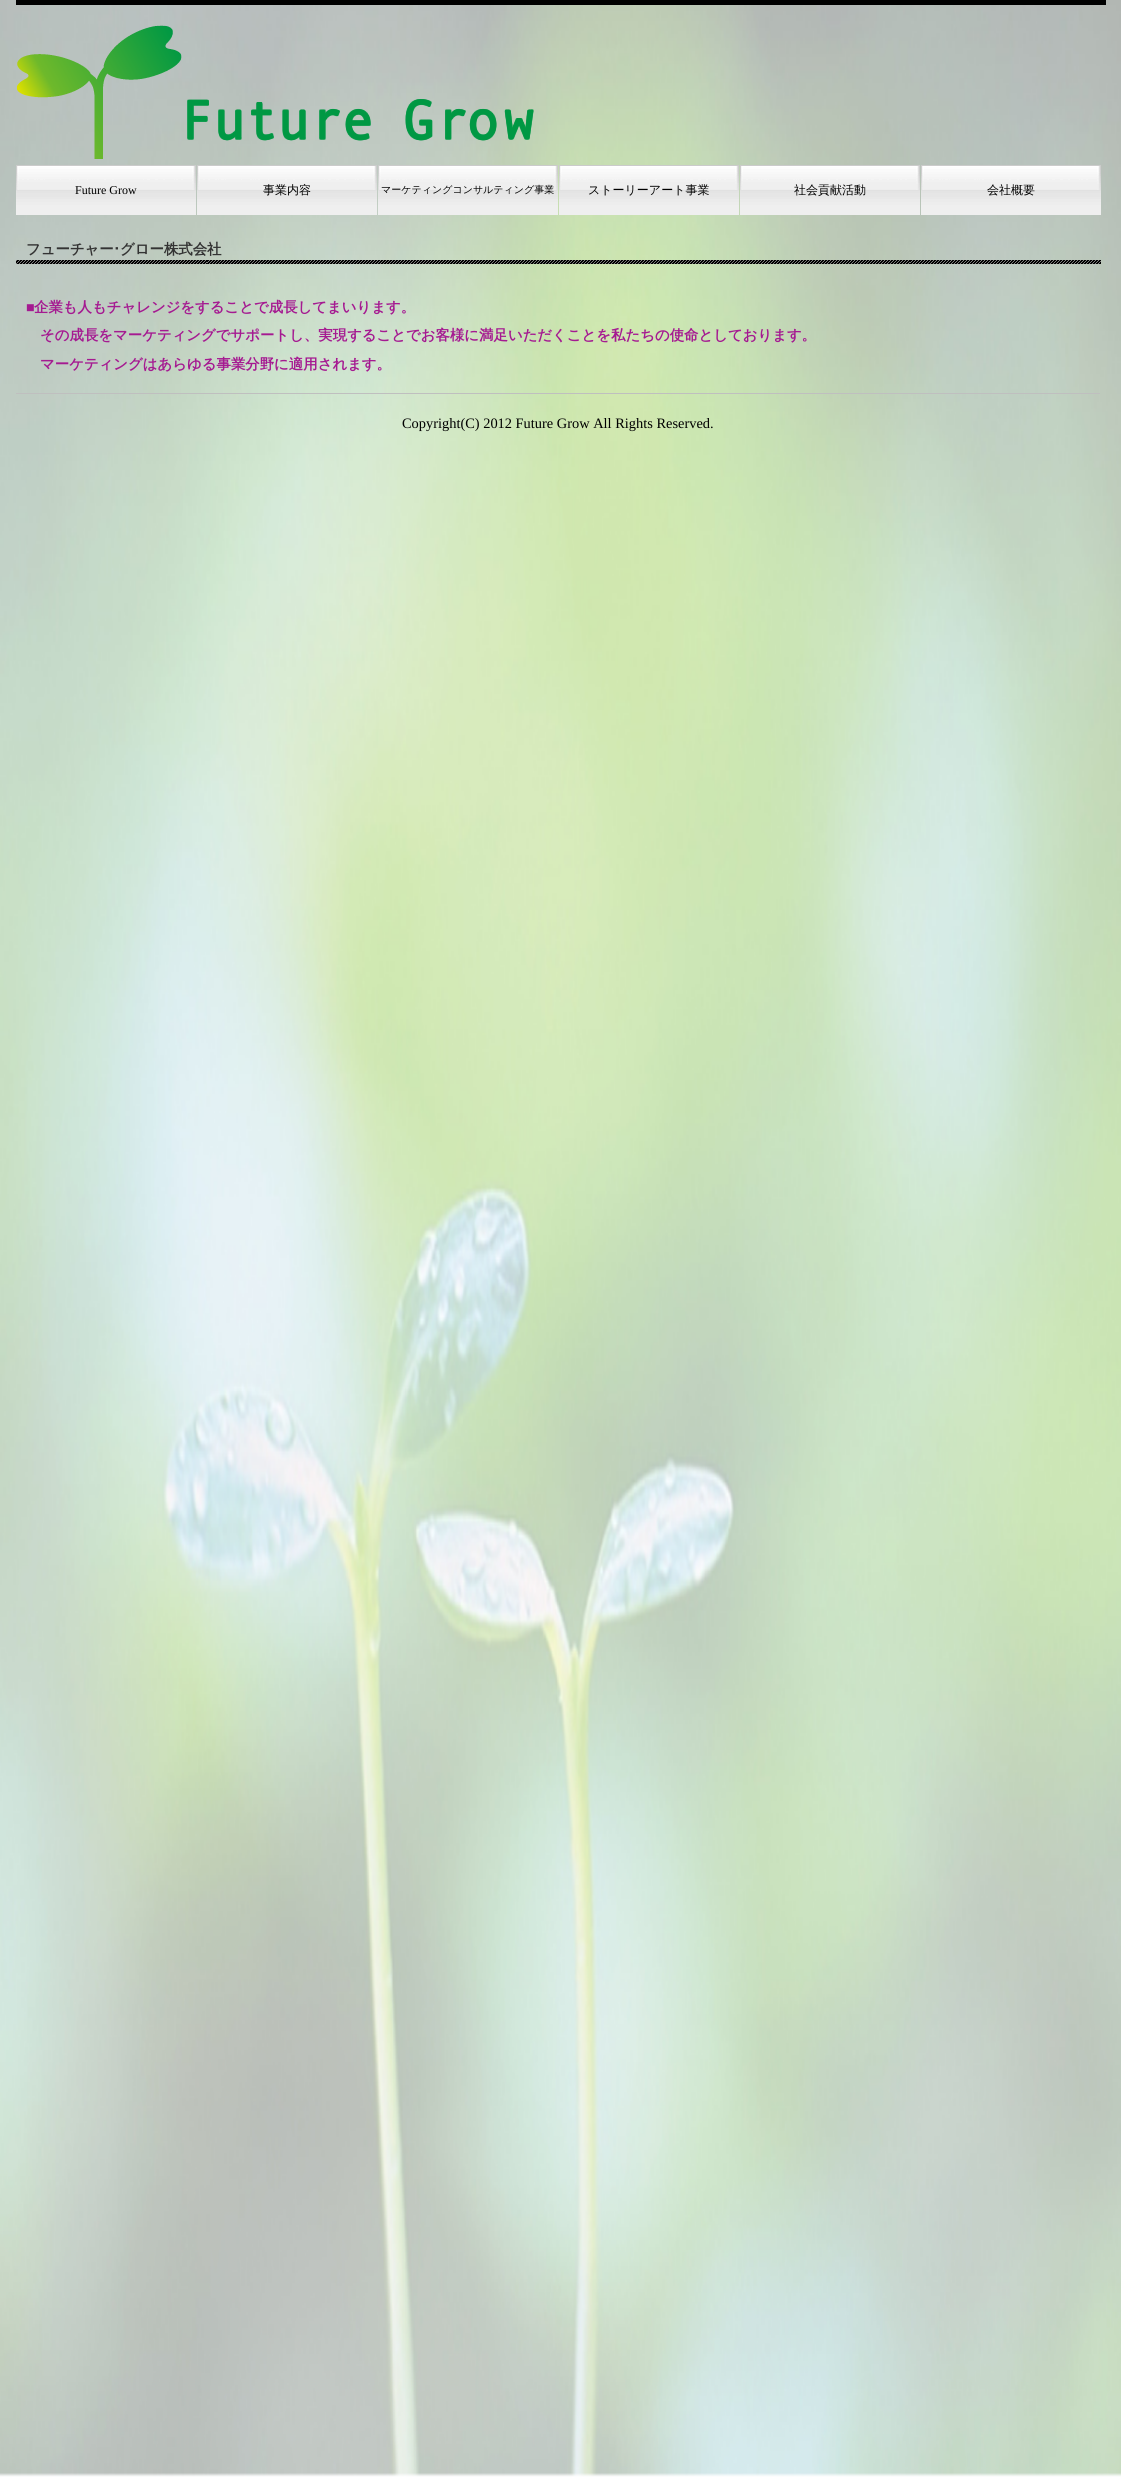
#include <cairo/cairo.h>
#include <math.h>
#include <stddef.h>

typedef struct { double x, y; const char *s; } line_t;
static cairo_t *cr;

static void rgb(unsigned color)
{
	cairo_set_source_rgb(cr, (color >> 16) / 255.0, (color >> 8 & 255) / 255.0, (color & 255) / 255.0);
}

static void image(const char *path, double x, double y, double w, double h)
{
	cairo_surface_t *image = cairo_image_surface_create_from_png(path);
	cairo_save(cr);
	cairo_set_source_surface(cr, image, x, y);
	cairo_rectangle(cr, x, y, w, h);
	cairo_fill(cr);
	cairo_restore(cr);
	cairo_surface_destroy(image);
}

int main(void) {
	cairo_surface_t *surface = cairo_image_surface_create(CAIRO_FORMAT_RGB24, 1121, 2481);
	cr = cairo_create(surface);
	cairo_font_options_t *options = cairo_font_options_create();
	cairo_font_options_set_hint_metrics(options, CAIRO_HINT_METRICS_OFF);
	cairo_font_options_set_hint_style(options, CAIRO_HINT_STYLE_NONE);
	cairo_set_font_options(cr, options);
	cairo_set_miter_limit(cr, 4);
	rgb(0xffffff);
	cairo_paint(cr);
	image("img/1.png", 0, 0, 1121, 2477);
	rgb(0x000000);
	cairo_rectangle(cr, 16, 0, 1090, 5);
	cairo_fill(cr);
	image("img/2.png", 16, 25, 518, 134);
	image("img/3.png", 16, 165, 180, 50);
	image("img/3.png", 197, 165, 180, 50);
	image("img/3.png", 378, 165, 180, 50);
	image("img/3.png", 559, 165, 180, 50);
	image("img/3.png", 740, 165, 180, 50);
	image("img/3.png", 921, 165, 180, 50);
	image("img/4.png", 16, 260, 1085, 4);
	rgb(0xbfbfbf);
	cairo_rectangle(cr, 16, 393, 1084, 1);
	cairo_fill(cr);
	cairo_select_font_face(cr, "Liberation Serif", CAIRO_FONT_SLANT_NORMAL, CAIRO_FONT_WEIGHT_NORMAL);
	cairo_set_font_size(cr, 12);
	rgb(0x000000);
	cairo_move_to(cr, 75, 194);
	cairo_show_text(cr, "Future Grow");
	cairo_select_font_face(cr, "WenQuanYi Zen Hei Medium", CAIRO_FONT_SLANT_NORMAL, CAIRO_FONT_WEIGHT_NORMAL);
	cairo_move_to(cr, 263, 194);
	cairo_show_text(cr, "事業内容");
	cairo_set_font_size(cr, 10);
	cairo_move_to(cr, 381, 193);
	cairo_show_text(cr, "マーケティングコンサルティング事業");
	cairo_set_font_size(cr, 12);
	{
		static const line_t items[] = {
			{588, 194, "ストーリーアート事業"},
			{794, 194, "社会貢献活動"},
			{987, 194, "会社概要"},
		};
		for (size_t i = 0; i < sizeof items / sizeof *items; i++) {
			cairo_move_to(cr, items[i].x, items[i].y);
			cairo_show_text(cr, items[i].s);
		}
	}
	cairo_select_font_face(cr, "WenQuanYi Zen Hei", CAIRO_FONT_SLANT_NORMAL, CAIRO_FONT_WEIGHT_BOLD);
	cairo_set_font_size(cr, 14.4);
	rgb(0x333333);
	cairo_move_to(cr, 26, 254);
	cairo_show_text(cr, "フューチャー");
	cairo_select_font_face(cr, "IPAPGothic", CAIRO_FONT_SLANT_NORMAL, CAIRO_FONT_WEIGHT_BOLD);
	cairo_move_to(cr, 113, 254);
	cairo_show_text(cr, "･");
	cairo_select_font_face(cr, "WenQuanYi Zen Hei", CAIRO_FONT_SLANT_NORMAL, CAIRO_FONT_WEIGHT_BOLD);
	cairo_move_to(cr, 120, 254);
	cairo_show_text(cr, "グロー株式会社");
	cairo_select_font_face(cr, "Liberation Serif", CAIRO_FONT_SLANT_NORMAL, CAIRO_FONT_WEIGHT_NORMAL);
	rgb(0xa51a91);
	cairo_move_to(cr, 26, 312);
	cairo_show_text(cr, "■");
	cairo_select_font_face(cr, "WenQuanYi Zen Hei", CAIRO_FONT_SLANT_NORMAL, CAIRO_FONT_WEIGHT_BOLD);
	{
		static const line_t items[] = {
			{34, 312, "企業も人もチャレンジをすることで成長してまいります。"},
			{40, 340, "その成長をマーケティングでサポートし、実現することでお客様に満足いただくことを私たちの使命としております。"},
			{40, 369, "マーケティングはあらゆる事業分野に適用されます。"},
		};
		for (size_t i = 0; i < sizeof items / sizeof *items; i++) {
			cairo_move_to(cr, items[i].x, items[i].y);
			cairo_show_text(cr, items[i].s);
		}
	}
	cairo_select_font_face(cr, "Liberation Serif", CAIRO_FONT_SLANT_NORMAL, CAIRO_FONT_WEIGHT_NORMAL);
	rgb(0x000000);
	cairo_move_to(cr, 402, 428);
	cairo_show_text(cr, "Copyright(C) 2012 Future Grow All Rights Reserved.");
	cairo_surface_write_to_png(surface, "page.png");
	cairo_font_options_destroy(options);
	cairo_destroy(cr);
	cairo_surface_destroy(surface);
	return 0;
}
